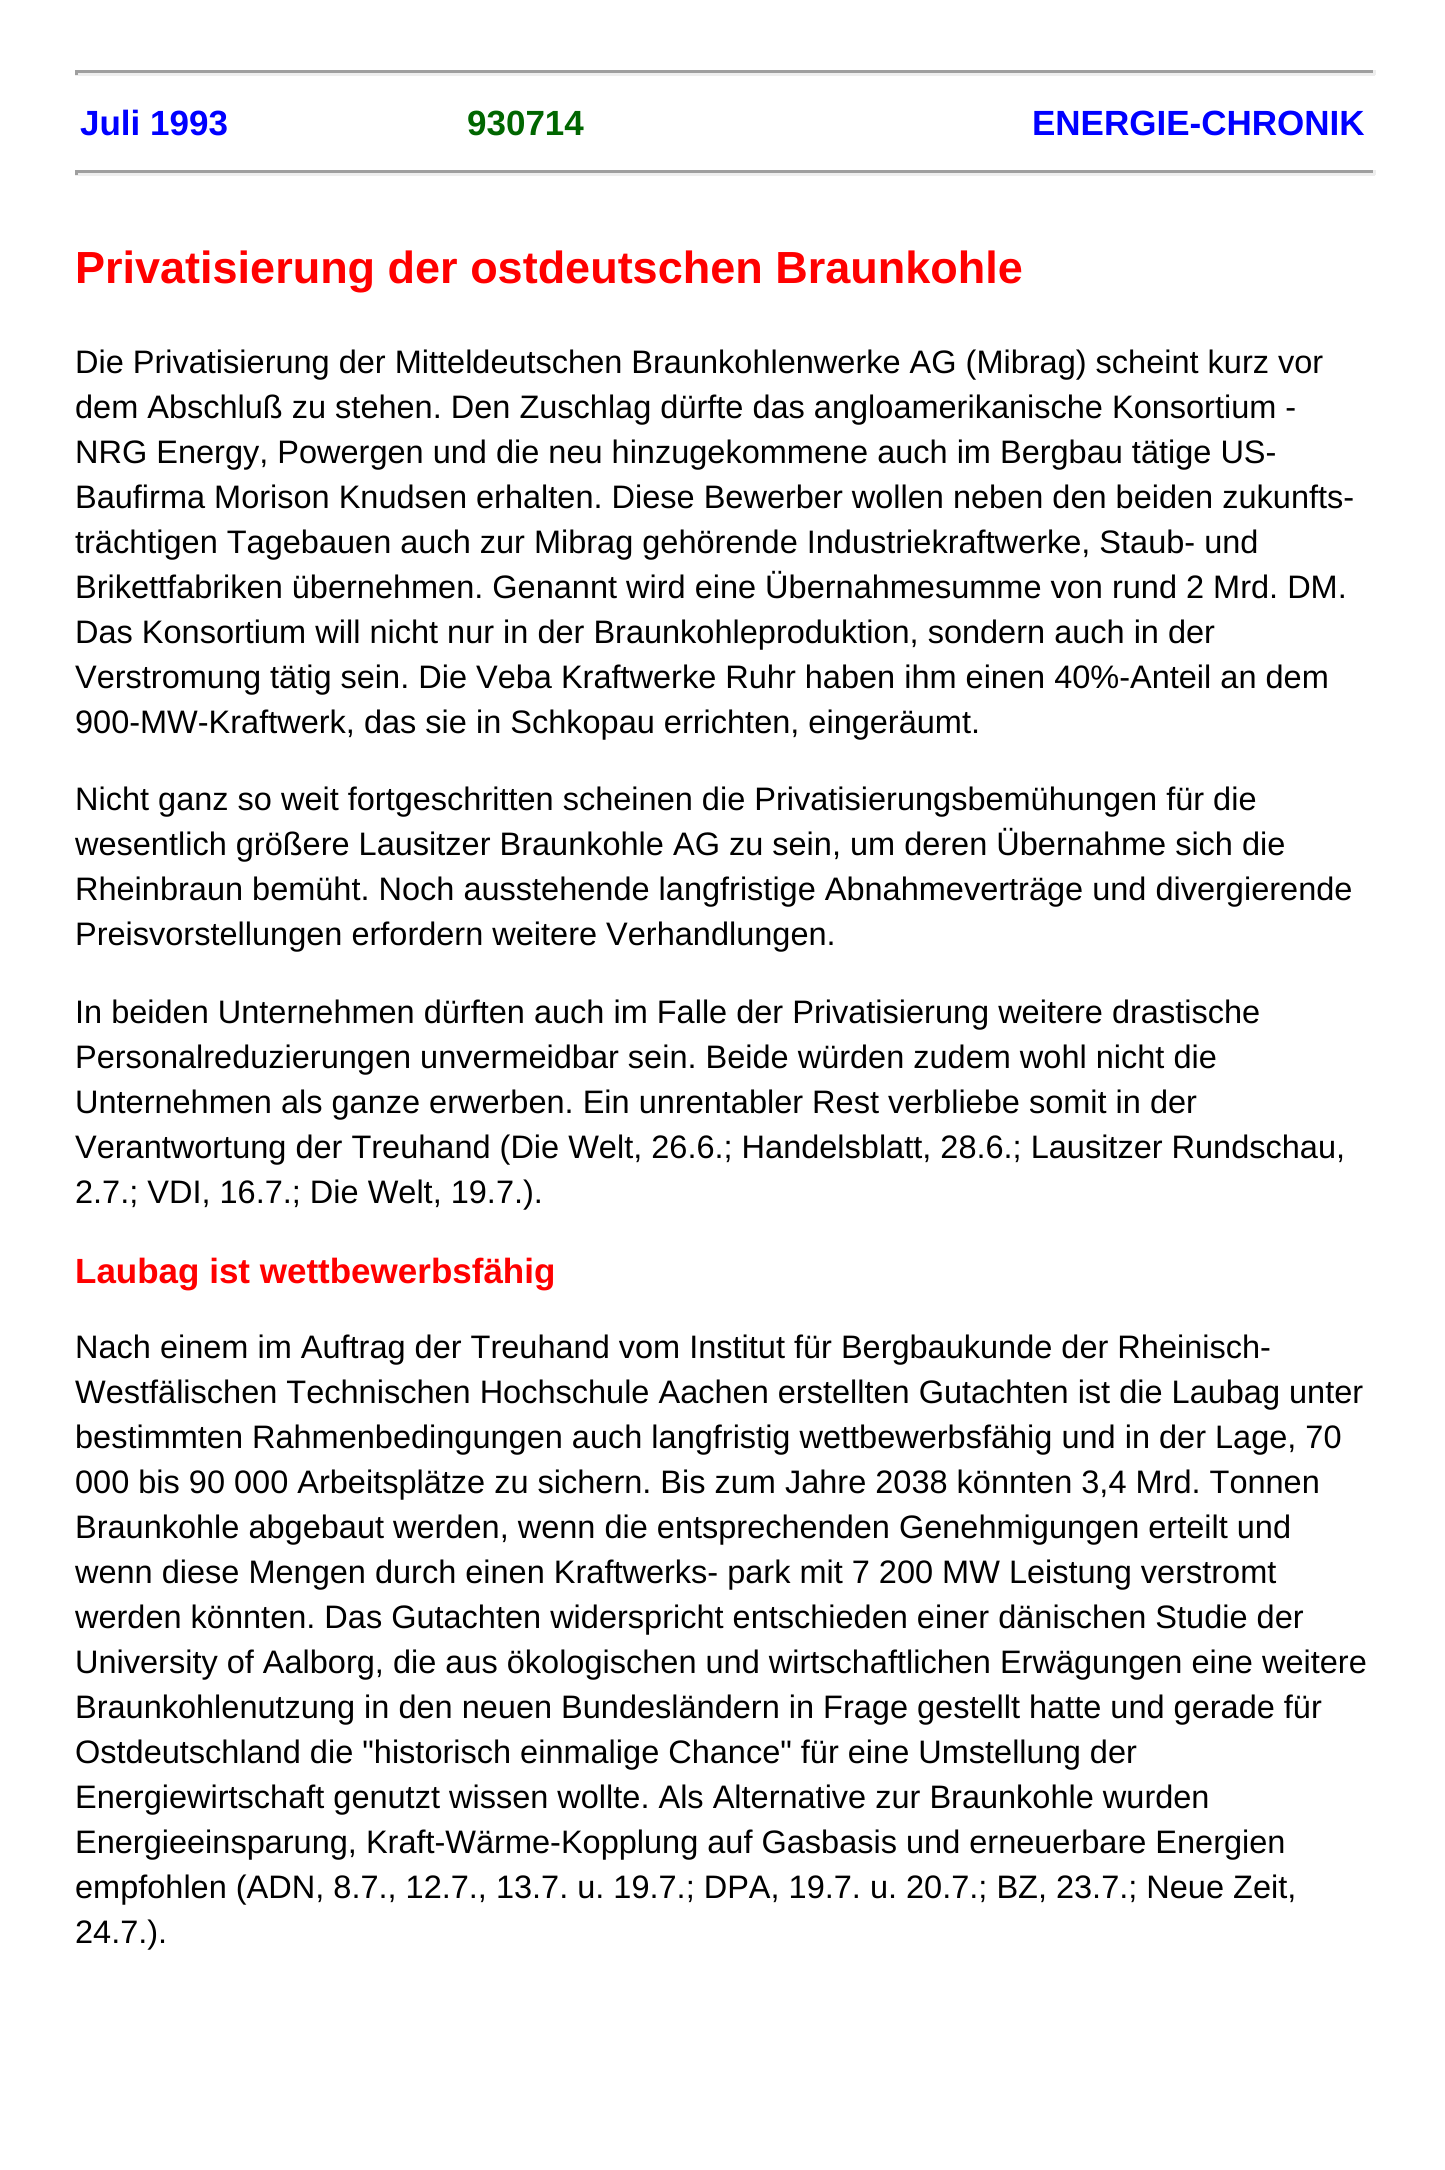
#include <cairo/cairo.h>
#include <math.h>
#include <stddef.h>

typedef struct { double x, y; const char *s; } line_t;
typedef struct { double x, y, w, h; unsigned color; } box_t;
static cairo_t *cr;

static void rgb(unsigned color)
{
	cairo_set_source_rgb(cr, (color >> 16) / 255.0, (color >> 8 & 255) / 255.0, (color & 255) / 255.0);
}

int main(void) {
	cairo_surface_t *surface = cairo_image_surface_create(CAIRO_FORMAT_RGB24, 1445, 2170);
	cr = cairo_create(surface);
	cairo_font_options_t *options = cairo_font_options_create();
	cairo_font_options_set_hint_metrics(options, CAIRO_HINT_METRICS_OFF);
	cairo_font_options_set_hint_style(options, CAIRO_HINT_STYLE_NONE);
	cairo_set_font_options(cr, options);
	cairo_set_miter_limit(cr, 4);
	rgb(0xffffff);
	cairo_paint(cr);
	{
		static const box_t items[] = {
			{75, 70, 1300, 3, 0x9f9f9f},
			{1373, 70, 3, 5, 0xeeeeee},
			{75, 73, 1300, 3, 0xeeeeee},
			{75, 70, 3, 5, 0x9f9f9f},
			{75, 170, 1300, 3, 0x9f9f9f},
			{1373, 170, 3, 5, 0xeeeeee},
			{75, 173, 1300, 3, 0xeeeeee},
			{75, 170, 3, 5, 0x9f9f9f},
		};
		for (size_t i = 0; i < sizeof items / sizeof *items; i++) {
			rgb(items[i].color);
			cairo_rectangle(cr, items[i].x, items[i].y, items[i].w, items[i].h);
			cairo_fill(cr);
		}
	}
	cairo_select_font_face(cr, "Liberation Sans", CAIRO_FONT_SLANT_NORMAL, CAIRO_FONT_WEIGHT_BOLD);
	cairo_set_font_size(cr, 35);
	rgb(0x0000ff);
	cairo_move_to(cr, 80, 135);
	cairo_show_text(cr, "Juli 1993");
	rgb(0x006600);
	cairo_move_to(cr, 467, 135);
	cairo_show_text(cr, "930714");
	rgb(0x0000ff);
	cairo_move_to(cr, 1032, 135);
	cairo_show_text(cr, "ENERGIE-CHRONIK");
	cairo_set_font_size(cr, 45);
	rgb(0xff0000);
	cairo_move_to(cr, 75, 283);
	cairo_show_text(cr, "Privatisierung der ostdeutschen Braunkohle");
	cairo_select_font_face(cr, "Liberation Sans", CAIRO_FONT_SLANT_NORMAL, CAIRO_FONT_WEIGHT_NORMAL);
	cairo_set_font_size(cr, 32.5);
	rgb(0x000000);
	{
		static const line_t items[] = {
			{75, 373, "Die Privatisierung der Mitteldeutschen Braunkohlenwerke AG (Mibrag) scheint kurz vor"},
			{75, 418, "dem Abschluß zu stehen. Den Zuschlag dürfte das angloamerikanische Konsortium -"},
			{75, 463, "NRG Energy, Powergen und die neu hinzugekommene auch im Bergbau tätige US-"},
			{75, 508, "Baufirma Morison Knudsen erhalten. Diese Bewerber wollen neben den beiden zukunfts-"},
			{75, 553, "trächtigen Tagebauen auch zur Mibrag gehörende Industriekraftwerke, Staub- und"},
			{75, 598, "Brikettfabriken übernehmen. Genannt wird eine Übernahmesumme von rund 2 Mrd. DM."},
			{75, 643, "Das Konsortium will nicht nur in der Braunkohleproduktion, sondern auch in der"},
			{75, 688, "Verstromung tätig sein. Die Veba Kraftwerke Ruhr haben ihm einen 40%-Anteil an dem"},
			{75, 733, "900-MW-Kraftwerk, das sie in Schkopau errichten, eingeräumt."},
			{75, 810, "Nicht ganz so weit fortgeschritten scheinen die Privatisierungsbemühungen für die"},
			{75, 855, "wesentlich größere Lausitzer Braunkohle AG zu sein, um deren Übernahme sich die"},
			{75, 900, "Rheinbraun bemüht. Noch ausstehende langfristige Abnahmeverträge und divergierende"},
			{75, 945, "Preisvorstellungen erfordern weitere Verhandlungen."},
			{75, 1023, "In beiden Unternehmen dürften auch im Falle der Privatisierung weitere drastische"},
			{75, 1068, "Personalreduzierungen unvermeidbar sein. Beide würden zudem wohl nicht die"},
			{75, 1113, "Unternehmen als ganze erwerben. Ein unrentabler Rest verbliebe somit in der"},
			{75, 1158, "Verantwortung der Treuhand (Die Welt, 26.6.; Handelsblatt, 28.6.; Lausitzer Rundschau,"},
			{75, 1203, "2.7.; VDI, 16.7.; Die Welt, 19.7.)."},
		};
		for (size_t i = 0; i < sizeof items / sizeof *items; i++) {
			cairo_move_to(cr, items[i].x, items[i].y);
			cairo_show_text(cr, items[i].s);
		}
	}
	cairo_select_font_face(cr, "Liberation Sans", CAIRO_FONT_SLANT_NORMAL, CAIRO_FONT_WEIGHT_BOLD);
	cairo_set_font_size(cr, 35);
	rgb(0xff0000);
	cairo_move_to(cr, 75, 1283);
	cairo_show_text(cr, "Laubag ist wettbewerbsfähig");
	cairo_select_font_face(cr, "Liberation Sans", CAIRO_FONT_SLANT_NORMAL, CAIRO_FONT_WEIGHT_NORMAL);
	cairo_set_font_size(cr, 32.5);
	rgb(0x000000);
	{
		static const line_t items[] = {
			{75, 1358, "Nach einem im Auftrag der Treuhand vom Institut für Bergbaukunde der Rheinisch-"},
			{75, 1403, "Westfälischen Technischen Hochschule Aachen erstellten Gutachten ist die Laubag unter"},
			{75, 1448, "bestimmten Rahmenbedingungen auch langfristig wettbewerbsfähig und in der Lage, 70"},
			{75, 1493, "000 bis 90 000 Arbeitsplätze zu sichern. Bis zum Jahre 2038 könnten 3,4 Mrd. Tonnen"},
			{75, 1538, "Braunkohle abgebaut werden, wenn die entsprechenden Genehmigungen erteilt und"},
			{75, 1583, "wenn diese Mengen durch einen Kraftwerks- park mit 7 200 MW Leistung verstromt"},
			{75, 1628, "werden könnten. Das Gutachten widerspricht entschieden einer dänischen Studie der"},
			{75, 1673, "University of Aalborg, die aus ökologischen und wirtschaftlichen Erwägungen eine weitere"},
			{75, 1718, "Braunkohlenutzung in den neuen Bundesländern in Frage gestellt hatte und gerade für"},
			{75, 1763, "Ostdeutschland die \"historisch einmalige Chance\" für eine Umstellung der"},
			{75, 1808, "Energiewirtschaft genutzt wissen wollte. Als Alternative zur Braunkohle wurden"},
			{75, 1853, "Energieeinsparung, Kraft-Wärme-Kopplung auf Gasbasis und erneuerbare Energien"},
			{75, 1898, "empfohlen (ADN, 8.7., 12.7., 13.7. u. 19.7.; DPA, 19.7. u. 20.7.; BZ, 23.7.; Neue Zeit,"},
			{75, 1943, "24.7.)."},
		};
		for (size_t i = 0; i < sizeof items / sizeof *items; i++) {
			cairo_move_to(cr, items[i].x, items[i].y);
			cairo_show_text(cr, items[i].s);
		}
	}
	cairo_surface_write_to_png(surface, "page.png");
	cairo_font_options_destroy(options);
	cairo_destroy(cr);
	cairo_surface_destroy(surface);
	return 0;
}
